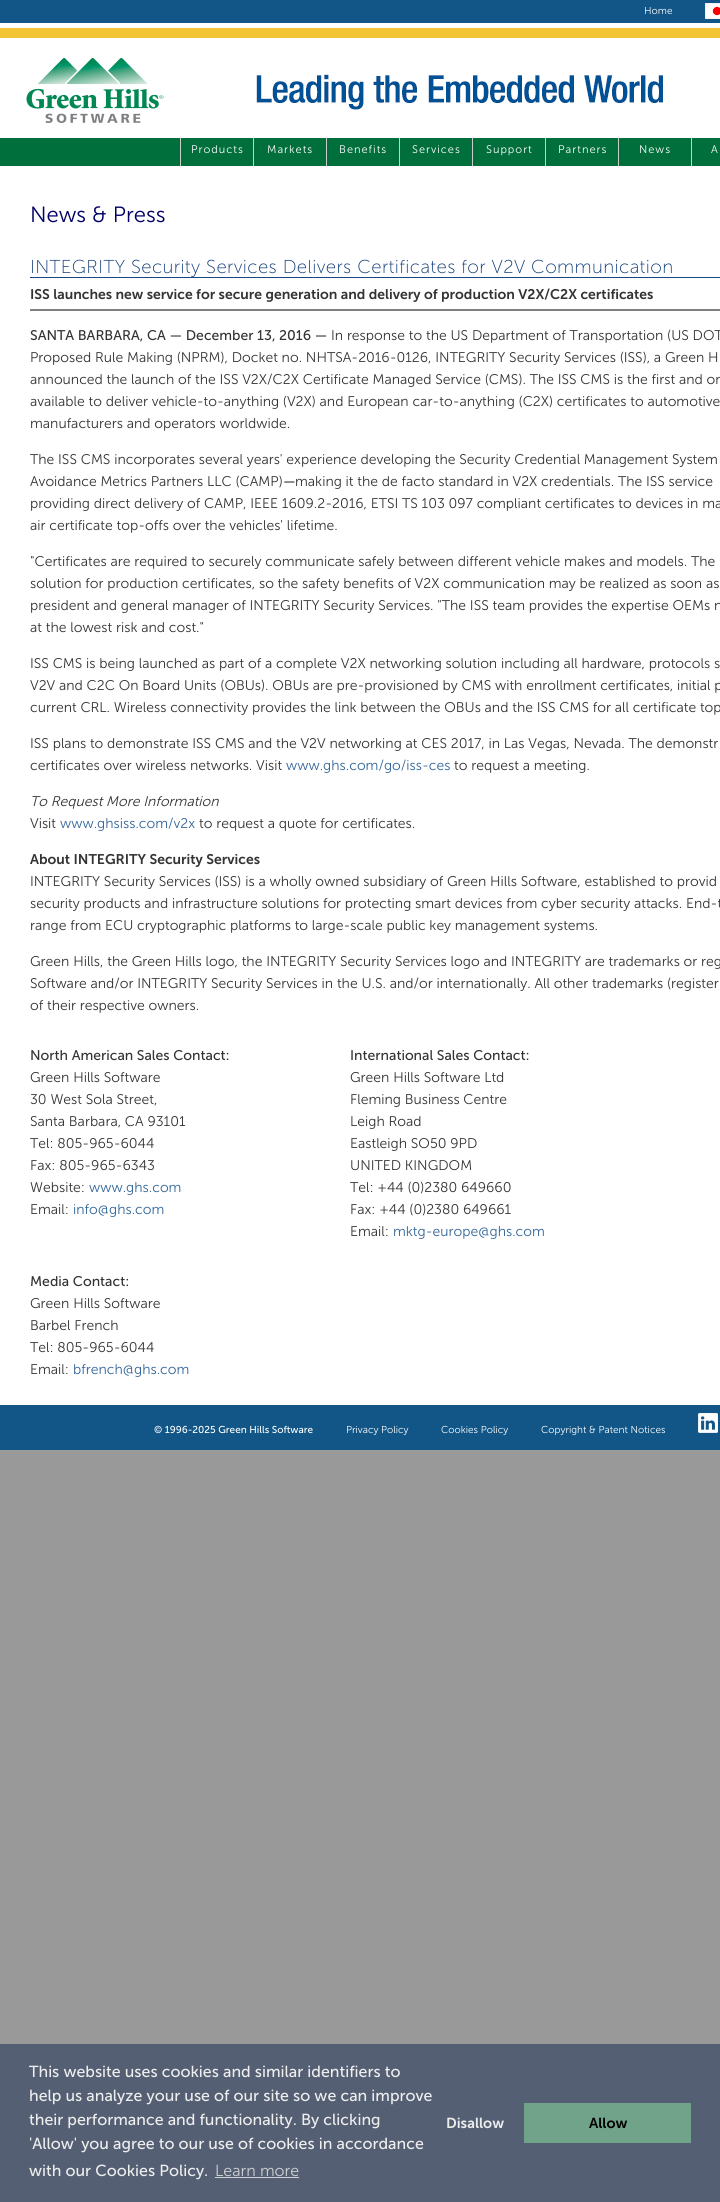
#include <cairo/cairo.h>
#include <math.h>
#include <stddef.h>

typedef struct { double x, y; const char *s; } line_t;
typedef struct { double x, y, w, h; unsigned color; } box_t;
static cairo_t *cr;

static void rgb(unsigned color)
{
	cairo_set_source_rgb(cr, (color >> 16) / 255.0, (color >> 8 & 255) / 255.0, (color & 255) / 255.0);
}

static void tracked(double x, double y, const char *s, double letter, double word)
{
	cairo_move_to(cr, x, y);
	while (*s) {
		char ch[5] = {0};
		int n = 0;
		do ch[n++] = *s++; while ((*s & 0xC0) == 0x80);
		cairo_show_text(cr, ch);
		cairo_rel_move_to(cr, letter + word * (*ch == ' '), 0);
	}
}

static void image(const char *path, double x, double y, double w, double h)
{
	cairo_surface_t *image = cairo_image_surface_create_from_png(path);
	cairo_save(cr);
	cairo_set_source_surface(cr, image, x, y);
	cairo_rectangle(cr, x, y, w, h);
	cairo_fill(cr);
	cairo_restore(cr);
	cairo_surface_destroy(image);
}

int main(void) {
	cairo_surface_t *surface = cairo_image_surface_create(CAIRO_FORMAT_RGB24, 720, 2202);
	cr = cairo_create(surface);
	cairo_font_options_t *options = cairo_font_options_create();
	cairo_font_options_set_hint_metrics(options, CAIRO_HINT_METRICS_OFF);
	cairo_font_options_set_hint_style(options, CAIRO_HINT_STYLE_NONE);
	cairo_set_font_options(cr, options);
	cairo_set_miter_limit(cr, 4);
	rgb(0x999999);
	cairo_paint(cr);
	rgb(0xffffff);
	cairo_rectangle(cr, 0, 23, 720, 1382);
	cairo_fill(cr);
	rgb(0x125687);
	cairo_rectangle(cr, 0, 0, 720, 23);
	cairo_fill(cr);
	image("img/1.png", 705, 3, 15, 16);
	rgb(0xf2c534);
	cairo_rectangle(cr, 0, 28, 720, 10);
	cairo_fill(cr);
	image("img/2.png", 26, 58, 138, 65);
	image("img/3.png", 255, 74, 408, 38);
	{
		static const box_t items[] = {
			{0, 138, 720, 28, 0x006f3c},
			{253, 138, 1, 28, 0xcccccc},
			{180, 138, 1, 28, 0xcccccc},
			{326, 138, 1, 28, 0xcccccc},
			{399, 138, 1, 28, 0xcccccc},
			{472, 138, 1, 28, 0xcccccc},
			{545, 138, 1, 28, 0xcccccc},
			{618, 138, 1, 28, 0xcccccc},
			{691, 138, 1, 28, 0xcccccc},
			{30, 277, 690, 1, 0x174783},
			{30, 309, 690, 2, 0x808080},
			{0, 1405, 720, 45, 0x125687},
		};
		for (size_t i = 0; i < sizeof items / sizeof *items; i++) {
			rgb(items[i].color);
			cairo_rectangle(cr, items[i].x, items[i].y, items[i].w, items[i].h);
			cairo_fill(cr);
		}
	}
	image("img/4.png", 698, 1413, 20, 20);
	{
		static const box_t items[] = {
			{0, 2044, 720, 158, 0x545f73},
			{215, 2177, 84, 1, 0xcfd1d5},
			{524, 2103, 167, 40, 0x71a28a},
		};
		for (size_t i = 0; i < sizeof items / sizeof *items; i++) {
			rgb(items[i].color);
			cairo_rectangle(cr, items[i].x, items[i].y, items[i].w, items[i].h);
			cairo_fill(cr);
		}
	}
	cairo_select_font_face(cr, "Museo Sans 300 Light", CAIRO_FONT_SLANT_NORMAL, CAIRO_FONT_WEIGHT_NORMAL);
	cairo_set_font_size(cr, 10);
	rgb(0xffffff);
	cairo_move_to(cr, 644, 14);
	cairo_show_text(cr, "Home");
	cairo_set_font_size(cr, 11);
	{
		static const line_t items[] = {
			{191, 153, "Products"},
			{267, 153, "Markets"},
			{339, 153, "Benefits"},
			{412, 153, "Services"},
			{486, 153, "Support"},
			{558, 153, "Partners"},
			{639, 153, "News"},
			{711, 153, "A"},
		};
		for (size_t i = 0; i < sizeof items / sizeof *items; i++) {
			tracked(items[i].x, items[i].y, items[i].s, 1, 0);
		}
	}
	cairo_set_font_size(cr, 22);
	rgb(0x000066);
	cairo_move_to(cr, 30, 222);
	cairo_show_text(cr, "News & Press");
	cairo_select_font_face(cr, "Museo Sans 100 Light", CAIRO_FONT_SLANT_NORMAL, CAIRO_FONT_WEIGHT_NORMAL);
	cairo_set_font_size(cr, 18.65);
	rgb(0x113c79);
	tracked(30, 273, "INTEGRITY Security Services Delivers Certificates for V2V Communication", 0.37, 0);
	cairo_select_font_face(cr, "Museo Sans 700 SemiBold", CAIRO_FONT_SLANT_NORMAL, CAIRO_FONT_WEIGHT_NORMAL);
	cairo_set_font_size(cr, 14);
	rgb(0x333333);
	cairo_move_to(cr, 30, 299);
	cairo_show_text(cr, "ISS launches new service for secure generation and delivery of production V2X/C2X certificates");
	cairo_select_font_face(cr, "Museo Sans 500", CAIRO_FONT_SLANT_NORMAL, CAIRO_FONT_WEIGHT_NORMAL);
	cairo_move_to(cr, 30, 340);
	cairo_show_text(cr, "SANTA BARBARA, CA — December 13, 2016 —");
	cairo_select_font_face(cr, "Museo Sans 300 Light", CAIRO_FONT_SLANT_NORMAL, CAIRO_FONT_WEIGHT_NORMAL);
	{
		static const line_t items[] = {
			{331, 340, "In response to the US Department of Transportation (US DOT"},
			{30, 362, "Proposed Rule Making (NPRM), Docket no. NHTSA-2016-0126, INTEGRITY Security Services (ISS), a Green H"},
			{30, 384, "announced the launch of the ISS V2X/C2X Certificate Managed Service (CMS). The ISS CMS is the first and on"},
			{30, 406, "available to deliver vehicle-to-anything (V2X) and European car-to-anything (C2X) certificates to automotive"},
			{30, 428, "manufacturers and operators worldwide."},
			{30, 464, "The ISS CMS incorporates several years' experience developing the Security Credential Management System"},
			{30, 486, "Avoidance Metrics Partners LLC (CAMP)"},
		};
		for (size_t i = 0; i < sizeof items / sizeof *items; i++) {
			cairo_move_to(cr, items[i].x, items[i].y);
			cairo_show_text(cr, items[i].s);
		}
	}
	cairo_select_font_face(cr, "Museo Sans 500", CAIRO_FONT_SLANT_NORMAL, CAIRO_FONT_WEIGHT_NORMAL);
	cairo_move_to(cr, 283, 486);
	cairo_show_text(cr, "—");
	cairo_select_font_face(cr, "Museo Sans 300 Light", CAIRO_FONT_SLANT_NORMAL, CAIRO_FONT_WEIGHT_NORMAL);
	{
		static const line_t items[] = {
			{295, 486, "making it the de facto standard in V2X credentials. The ISS service"},
			{30, 508, "providing direct delivery of CAMP, IEEE 1609.2-2016, ETSI TS 103 097 compliant certificates to devices in ma"},
			{30, 530, "air certificate top-offs over the vehicles' lifetime."},
			{30, 566, "\"Certificates are required to securely communicate safely between different vehicle makes and models. The"},
			{30, 588, "solution for production certificates, so the safety benefits of V2X communication may be realized as soon as"},
			{30, 610, "president and general manager of INTEGRITY Security Services. \"The ISS team provides the expertise OEMs n"},
			{30, 632, "at the lowest risk and cost.\""},
			{30, 668, "ISS CMS is being launched as part of a complete V2X networking solution including all hardware, protocols s"},
			{30, 690, "V2V and C2C On Board Units (OBUs). OBUs are pre-provisioned by CMS with enrollment certificates, initial p"},
			{30, 712, "current CRL. Wireless connectivity provides the link between the OBUs and the ISS CMS for all certificate top"},
			{30, 748, "ISS plans to demonstrate ISS CMS and the V2V networking at CES 2017, in Las Vegas, Nevada. The demonstr"},
			{30, 770, "certificates over wireless networks. Visit"},
		};
		for (size_t i = 0; i < sizeof items / sizeof *items; i++) {
			cairo_move_to(cr, items[i].x, items[i].y);
			cairo_show_text(cr, items[i].s);
		}
	}
	rgb(0x336699);
	cairo_move_to(cr, 286, 770);
	cairo_show_text(cr, "www.ghs.com/go/iss-ces");
	rgb(0x333333);
	cairo_move_to(cr, 454, 770);
	cairo_show_text(cr, "to request a meeting.");
	cairo_select_font_face(cr, "Museo Sans 300 Light", CAIRO_FONT_SLANT_ITALIC, CAIRO_FONT_WEIGHT_NORMAL);
	cairo_move_to(cr, 30, 806);
	cairo_show_text(cr, "To Request More Information");
	cairo_select_font_face(cr, "Museo Sans 300 Light", CAIRO_FONT_SLANT_NORMAL, CAIRO_FONT_WEIGHT_NORMAL);
	cairo_move_to(cr, 30, 828);
	cairo_show_text(cr, "Visit");
	rgb(0x336699);
	cairo_move_to(cr, 60, 828);
	cairo_show_text(cr, "www.ghsiss.com/v2x");
	rgb(0x333333);
	cairo_move_to(cr, 199, 828);
	cairo_show_text(cr, "to request a quote for certificates.");
	cairo_select_font_face(cr, "Museo Sans 700 SemiBold", CAIRO_FONT_SLANT_NORMAL, CAIRO_FONT_WEIGHT_NORMAL);
	cairo_move_to(cr, 30, 864);
	cairo_show_text(cr, "About INTEGRITY Security Services");
	cairo_select_font_face(cr, "Museo Sans 300 Light", CAIRO_FONT_SLANT_NORMAL, CAIRO_FONT_WEIGHT_NORMAL);
	{
		static const line_t items[] = {
			{30, 886, "INTEGRITY Security Services (ISS) is a wholly owned subsidiary of Green Hills Software, established to provid"},
			{30, 908, "security products and infrastructure solutions for protecting smart devices from cyber security attacks. End-t"},
			{30, 930, "range from ECU cryptographic platforms to large-scale public key management systems."},
			{30, 966, "Green Hills, the Green Hills logo, the INTEGRITY Security Services logo and INTEGRITY are trademarks or reg"},
			{30, 988, "Software and/or INTEGRITY Security Services in the U.S. and/or internationally. All other trademarks (register"},
			{30, 1010, "of their respective owners."},
		};
		for (size_t i = 0; i < sizeof items / sizeof *items; i++) {
			cairo_move_to(cr, items[i].x, items[i].y);
			cairo_show_text(cr, items[i].s);
		}
	}
	cairo_select_font_face(cr, "Museo Sans 500", CAIRO_FONT_SLANT_NORMAL, CAIRO_FONT_WEIGHT_NORMAL);
	cairo_move_to(cr, 30, 1060);
	cairo_show_text(cr, "North American Sales Contact:");
	cairo_select_font_face(cr, "Museo Sans 300 Light", CAIRO_FONT_SLANT_NORMAL, CAIRO_FONT_WEIGHT_NORMAL);
	{
		static const line_t items[] = {
			{30, 1082, "Green Hills Software"},
			{30, 1104, "30 West Sola Street,"},
			{30, 1126, "Santa Barbara, CA 93101"},
			{30, 1148, "Tel: 805-965-6044"},
			{30, 1170, "Fax: 805-965-6343"},
			{30, 1192, "Website:"},
		};
		for (size_t i = 0; i < sizeof items / sizeof *items; i++) {
			cairo_move_to(cr, items[i].x, items[i].y);
			cairo_show_text(cr, items[i].s);
		}
	}
	rgb(0x336699);
	cairo_move_to(cr, 89, 1192);
	cairo_show_text(cr, "www.ghs.com");
	rgb(0x333333);
	cairo_move_to(cr, 30, 1214);
	cairo_show_text(cr, "Email:");
	rgb(0x336699);
	cairo_move_to(cr, 73, 1214);
	cairo_show_text(cr, "info@ghs.com");
	cairo_select_font_face(cr, "Museo Sans 500", CAIRO_FONT_SLANT_NORMAL, CAIRO_FONT_WEIGHT_NORMAL);
	rgb(0x333333);
	cairo_move_to(cr, 350, 1060);
	cairo_show_text(cr, "International Sales Contact:");
	cairo_select_font_face(cr, "Museo Sans 300 Light", CAIRO_FONT_SLANT_NORMAL, CAIRO_FONT_WEIGHT_NORMAL);
	{
		static const line_t items[] = {
			{350, 1082, "Green Hills Software Ltd"},
			{350, 1104, "Fleming Business Centre"},
			{350, 1126, "Leigh Road"},
			{350, 1148, "Eastleigh SO50 9PD"},
			{350, 1170, "UNITED KINGDOM"},
			{350, 1192, "Tel: +44 (0)2380 649660"},
			{350, 1214, "Fax: +44 (0)2380 649661"},
			{350, 1236, "Email:"},
		};
		for (size_t i = 0; i < sizeof items / sizeof *items; i++) {
			cairo_move_to(cr, items[i].x, items[i].y);
			cairo_show_text(cr, items[i].s);
		}
	}
	rgb(0x336699);
	cairo_move_to(cr, 393, 1236);
	cairo_show_text(cr, "mktg-europe@ghs.com");
	cairo_select_font_face(cr, "Museo Sans 500", CAIRO_FONT_SLANT_NORMAL, CAIRO_FONT_WEIGHT_NORMAL);
	rgb(0x333333);
	cairo_move_to(cr, 30, 1286);
	cairo_show_text(cr, "Media Contact:");
	cairo_select_font_face(cr, "Museo Sans 300 Light", CAIRO_FONT_SLANT_NORMAL, CAIRO_FONT_WEIGHT_NORMAL);
	{
		static const line_t items[] = {
			{30, 1308, "Green Hills Software"},
			{30, 1330, "Barbel French"},
			{30, 1352, "Tel: 805-965-6044"},
			{30, 1374, "Email:"},
		};
		for (size_t i = 0; i < sizeof items / sizeof *items; i++) {
			cairo_move_to(cr, items[i].x, items[i].y);
			cairo_show_text(cr, items[i].s);
		}
	}
	rgb(0x336699);
	cairo_move_to(cr, 73, 1374);
	cairo_show_text(cr, "bfrench@ghs.com");
	cairo_select_font_face(cr, "Museo Sans 500", CAIRO_FONT_SLANT_NORMAL, CAIRO_FONT_WEIGHT_NORMAL);
	cairo_set_font_size(cr, 10);
	rgb(0xffffff);
	cairo_move_to(cr, 154, 1433);
	cairo_show_text(cr, "© 1996-2025 Green Hills Software");
	cairo_select_font_face(cr, "Museo Sans 300 Light", CAIRO_FONT_SLANT_NORMAL, CAIRO_FONT_WEIGHT_NORMAL);
	{
		static const line_t items[] = {
			{346, 1433, "Privacy Policy"},
			{441, 1433, "Cookies Policy"},
			{541, 1433, "Copyright & Patent Notices"},
		};
		for (size_t i = 0; i < sizeof items / sizeof *items; i++) {
			cairo_move_to(cr, items[i].x, items[i].y);
			cairo_show_text(cr, items[i].s);
		}
	}
	cairo_select_font_face(cr, "Museo Sans 500", CAIRO_FONT_SLANT_NORMAL, CAIRO_FONT_WEIGHT_NORMAL);
	cairo_set_font_size(cr, 16);
	rgb(0xeeeeee);
	{
		static const line_t items[] = {
			{29, 2077, "This website uses cookies and similar identifiers to"},
			{29, 2101, "help us analyze your use of our site so we can improve"},
			{29, 2125, "their performance and functionality. By clicking"},
			{29, 2149, "'Allow' you agree to our use of cookies in accordance"},
			{29, 2176, "with our Cookies Policy."},
		};
		for (size_t i = 0; i < sizeof items / sizeof *items; i++) {
			cairo_move_to(cr, items[i].x, items[i].y);
			cairo_show_text(cr, items[i].s);
		}
	}
	cairo_select_font_face(cr, "Museo Sans 300 Light", CAIRO_FONT_SLANT_NORMAL, CAIRO_FONT_WEIGHT_NORMAL);
	rgb(0xcfd1d5);
	cairo_move_to(cr, 215, 2176);
	cairo_show_text(cr, "Learn more");
	cairo_select_font_face(cr, "Museo Sans 700 SemiBold", CAIRO_FONT_SLANT_NORMAL, CAIRO_FONT_WEIGHT_NORMAL);
	cairo_set_font_size(cr, 14.5);
	rgb(0xeeeeee);
	cairo_move_to(cr, 446, 2128);
	cairo_show_text(cr, "Disallow");
	rgb(0x000000);
	cairo_move_to(cr, 589, 2128);
	cairo_show_text(cr, "Allow");
	cairo_surface_write_to_png(surface, "page.png");
	cairo_font_options_destroy(options);
	cairo_destroy(cr);
	cairo_surface_destroy(surface);
	return 0;
}
